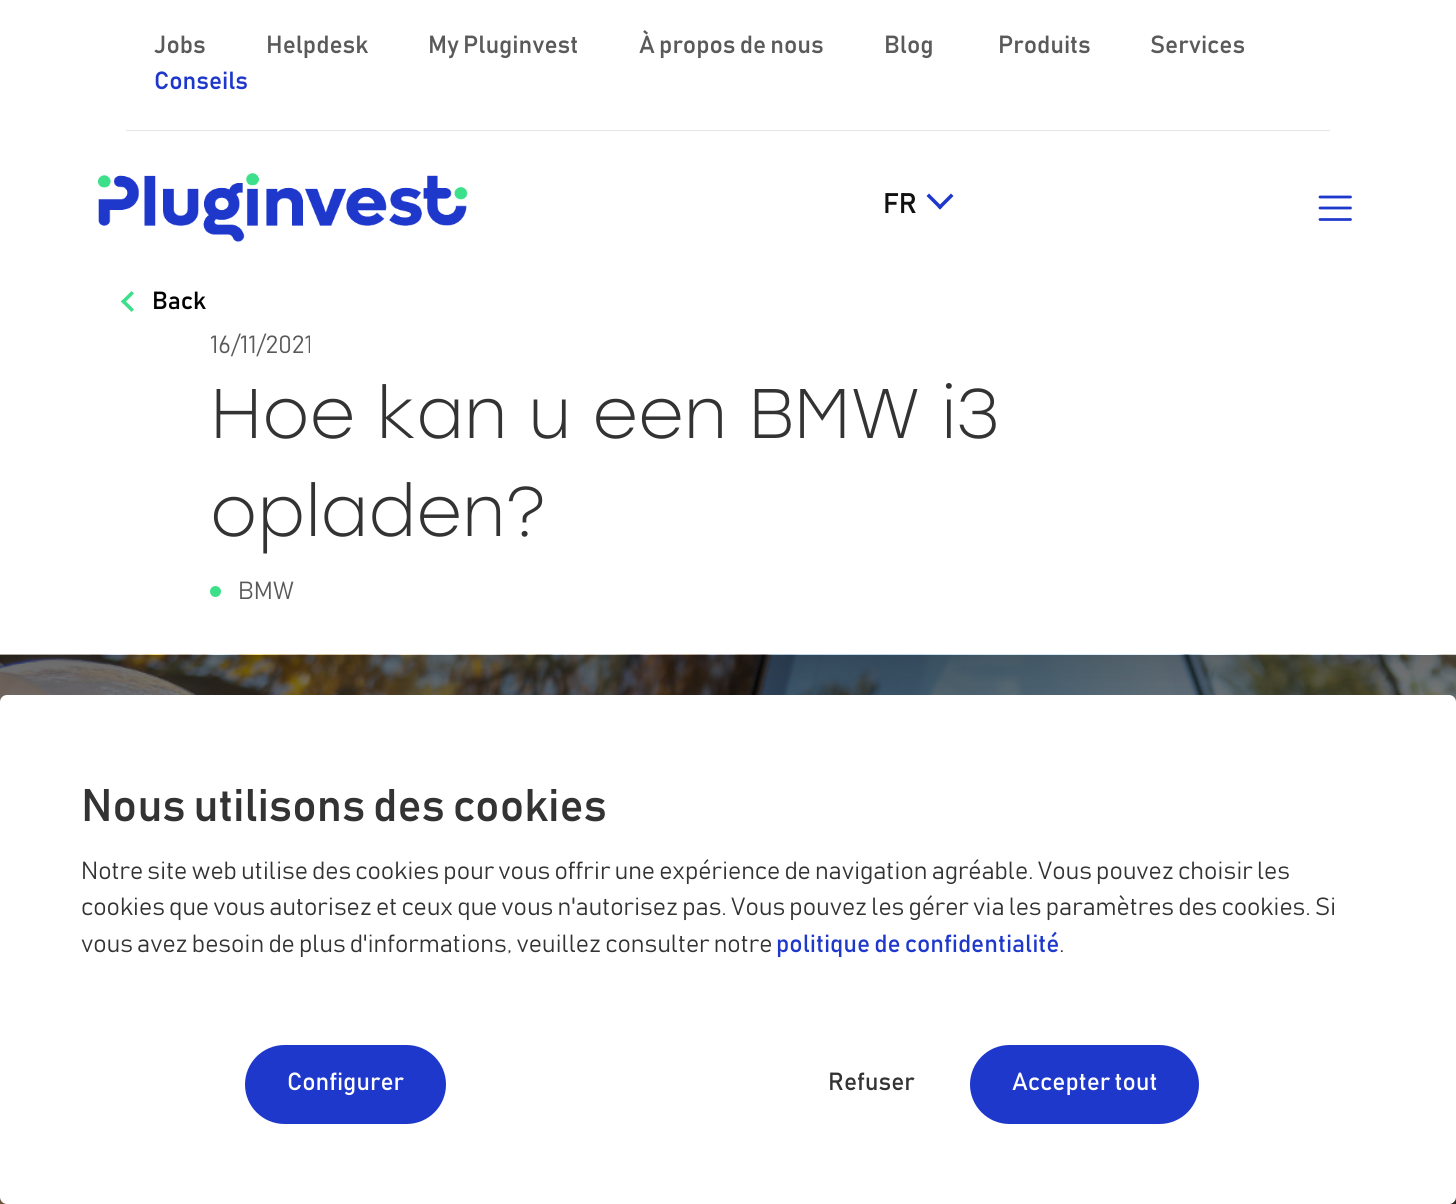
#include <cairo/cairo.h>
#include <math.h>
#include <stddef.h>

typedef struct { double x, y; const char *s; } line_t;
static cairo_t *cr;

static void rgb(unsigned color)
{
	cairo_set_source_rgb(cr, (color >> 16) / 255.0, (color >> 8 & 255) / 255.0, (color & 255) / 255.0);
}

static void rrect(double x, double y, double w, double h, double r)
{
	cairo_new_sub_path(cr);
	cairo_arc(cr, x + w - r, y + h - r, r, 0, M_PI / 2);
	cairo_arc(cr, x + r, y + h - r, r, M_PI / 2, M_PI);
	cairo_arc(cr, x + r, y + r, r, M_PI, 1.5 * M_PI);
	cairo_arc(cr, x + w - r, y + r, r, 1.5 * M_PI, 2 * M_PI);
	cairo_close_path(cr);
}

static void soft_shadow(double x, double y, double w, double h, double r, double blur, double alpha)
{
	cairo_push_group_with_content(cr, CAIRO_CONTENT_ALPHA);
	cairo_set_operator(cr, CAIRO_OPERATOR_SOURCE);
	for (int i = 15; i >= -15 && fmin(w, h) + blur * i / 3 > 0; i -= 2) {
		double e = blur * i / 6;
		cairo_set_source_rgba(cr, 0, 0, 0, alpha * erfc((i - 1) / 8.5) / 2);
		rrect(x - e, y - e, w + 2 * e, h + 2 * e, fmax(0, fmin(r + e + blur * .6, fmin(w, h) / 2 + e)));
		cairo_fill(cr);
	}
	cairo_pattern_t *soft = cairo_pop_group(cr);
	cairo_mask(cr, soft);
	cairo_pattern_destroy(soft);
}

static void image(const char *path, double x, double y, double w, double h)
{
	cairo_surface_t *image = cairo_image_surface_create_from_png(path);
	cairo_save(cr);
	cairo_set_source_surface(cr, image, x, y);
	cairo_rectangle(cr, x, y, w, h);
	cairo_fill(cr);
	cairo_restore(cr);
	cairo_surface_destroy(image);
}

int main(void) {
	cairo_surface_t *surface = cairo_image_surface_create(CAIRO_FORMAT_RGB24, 1456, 1204);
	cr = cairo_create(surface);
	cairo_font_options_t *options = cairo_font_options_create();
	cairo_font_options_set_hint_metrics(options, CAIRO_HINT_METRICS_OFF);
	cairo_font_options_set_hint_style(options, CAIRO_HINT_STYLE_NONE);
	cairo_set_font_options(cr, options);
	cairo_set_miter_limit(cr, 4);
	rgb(0xffffff);
	cairo_paint(cr);
	rgb(0xe6e6e6);
	cairo_rectangle(cr, 126, 130, 1204, 1);
	cairo_fill(cr);
	image("img/1.png", 98, 173, 370, 69);
	rgb(0x1f38cc);
	cairo_new_path(cr);
	cairo_move_to(cr, 953.5, 196);
	cairo_line_to(cr, 940, 209.5);
	cairo_line_to(cr, 937.5, 207);
	cairo_line_to(cr, 951, 193.5);
	cairo_close_path(cr);
	cairo_fill(cr);
	cairo_new_path(cr);
	cairo_move_to(cr, 942.5, 207);
	cairo_line_to(cr, 940, 209.5);
	cairo_line_to(cr, 926.5, 196);
	cairo_line_to(cr, 929, 193.5);
	cairo_close_path(cr);
	cairo_fill(cr);
	cairo_new_path(cr);
	cairo_move_to(cr, 1320, 197);
	cairo_line_to(cr, 1350.5, 197);
	cairo_move_to(cr, 1320, 208);
	cairo_line_to(cr, 1350.5, 208);
	cairo_move_to(cr, 1320, 219.5);
	cairo_line_to(cr, 1350.5, 219.5);
	cairo_set_line_width(cr, 2.8);
	cairo_set_line_cap(cr, CAIRO_LINE_CAP_ROUND);
	cairo_stroke(cr);
	rgb(0x3de08a);
	cairo_new_path(cr);
	cairo_move_to(cr, 131.5, 312);
	cairo_line_to(cr, 121, 301.5);
	cairo_line_to(cr, 123.5, 299);
	cairo_line_to(cr, 134, 309.5);
	cairo_close_path(cr);
	cairo_fill(cr);
	cairo_new_path(cr);
	cairo_move_to(cr, 123.5, 304);
	cairo_line_to(cr, 121, 301.5);
	cairo_line_to(cr, 131.5, 291);
	cairo_line_to(cr, 134, 293.5);
	cairo_close_path(cr);
	cairo_fill(cr);
	cairo_arc(cr, 215.5, 591.5, 5.5, 0, 2 * M_PI);
	cairo_fill(cr);
	image("img/2.png", 0, 654, 1456, 550);
	rgb(0x000000);
	soft_shadow(0, 709, 1456, 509, 7, 28, 0.12);
	rgb(0xffffff);
	rrect(0, 695, 1456, 509, 7);
	cairo_fill(cr);
	rgb(0x1f38cc);
	rrect(245, 1045, 201, 79, 39.5);
	cairo_fill(cr);
	rrect(970, 1045, 229, 79, 39.5);
	cairo_fill(cr);
	cairo_select_font_face(cr, "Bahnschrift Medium", CAIRO_FONT_SLANT_NORMAL, CAIRO_FONT_WEIGHT_NORMAL);
	cairo_set_font_size(cr, 24.5);
	rgb(0x5a5a5a);
	{
		static const line_t items[] = {
			{154, 53, "Jobs"},
			{266, 53, "Helpdesk"},
			{428, 53, "My Pluginvest"},
			{639, 53, "À propos de nous"},
			{884, 53, "Blog"},
			{998, 53, "Produits"},
			{1150, 53, "Services"},
		};
		for (size_t i = 0; i < sizeof items / sizeof *items; i++) {
			cairo_move_to(cr, items[i].x, items[i].y);
			cairo_show_text(cr, items[i].s);
		}
	}
	rgb(0x1f38cc);
	cairo_move_to(cr, 154, 89);
	cairo_show_text(cr, "Conseils");
	cairo_set_font_size(cr, 28);
	rgb(0x111111);
	cairo_move_to(cr, 883, 213);
	cairo_show_text(cr, "FR");
	cairo_set_font_size(cr, 24.5);
	rgb(0x000000);
	cairo_move_to(cr, 152, 309);
	cairo_show_text(cr, "Back");
	cairo_select_font_face(cr, "Bahnschrift Light", CAIRO_FONT_SLANT_NORMAL, CAIRO_FONT_WEIGHT_NORMAL);
	rgb(0x5a5a5a);
	cairo_move_to(cr, 210, 353);
	cairo_show_text(cr, "16/11/2021");
	cairo_select_font_face(cr, "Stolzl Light", CAIRO_FONT_SLANT_NORMAL, CAIRO_FONT_WEIGHT_NORMAL);
	cairo_set_font_size(cr, 70);
	rgb(0x333333);
	cairo_move_to(cr, 210, 438);
	cairo_show_text(cr, "Hoe kan u een BMW i3");
	cairo_move_to(cr, 210, 536);
	cairo_show_text(cr, "opladen?");
	cairo_select_font_face(cr, "Bahnschrift Light", CAIRO_FONT_SLANT_NORMAL, CAIRO_FONT_WEIGHT_NORMAL);
	cairo_set_font_size(cr, 24.5);
	rgb(0x5a5a5a);
	cairo_move_to(cr, 238, 599);
	cairo_show_text(cr, "BMW");
	cairo_select_font_face(cr, "Bahnschrift Medium", CAIRO_FONT_SLANT_NORMAL, CAIRO_FONT_WEIGHT_NORMAL);
	cairo_set_font_size(cr, 45.1);
	rgb(0x333333);
	cairo_move_to(cr, 81, 821);
	cairo_show_text(cr, "Nous utilisons des cookies");
	cairo_select_font_face(cr, "Bahnschrift Light", CAIRO_FONT_SLANT_NORMAL, CAIRO_FONT_WEIGHT_NORMAL);
	cairo_set_font_size(cr, 24.5);
	{
		static const line_t items[] = {
			{81, 879, "Notre site web utilise des cookies pour vous offrir une expérience de navigation agréable. Vous pouvez choisir les"},
			{81, 915, "cookies que vous autorisez et ceux que vous n'autorisez pas. Vous pouvez les gérer via les paramètres des cookies. Si"},
			{81, 952, "vous avez besoin de plus d'informations, veuillez consulter notre"},
		};
		for (size_t i = 0; i < sizeof items / sizeof *items; i++) {
			cairo_move_to(cr, items[i].x, items[i].y);
			cairo_show_text(cr, items[i].s);
		}
	}
	cairo_select_font_face(cr, "Bahnschrift", CAIRO_FONT_SLANT_NORMAL, CAIRO_FONT_WEIGHT_NORMAL);
	rgb(0x1f38cc);
	cairo_move_to(cr, 776, 952);
	cairo_show_text(cr, "politique de confidentialité");
	cairo_select_font_face(cr, "Bahnschrift Light", CAIRO_FONT_SLANT_NORMAL, CAIRO_FONT_WEIGHT_NORMAL);
	rgb(0x333333);
	cairo_move_to(cr, 1059, 952);
	cairo_show_text(cr, ".");
	cairo_select_font_face(cr, "Bahnschrift", CAIRO_FONT_SLANT_NORMAL, CAIRO_FONT_WEIGHT_NORMAL);
	rgb(0xffffff);
	cairo_move_to(cr, 287, 1090);
	cairo_show_text(cr, "Configurer");
	rgb(0x333333);
	cairo_move_to(cr, 828, 1090);
	cairo_show_text(cr, "Refuser");
	rgb(0xffffff);
	cairo_move_to(cr, 1012, 1090);
	cairo_show_text(cr, "Accepter tout");
	cairo_surface_write_to_png(surface, "page.png");
	cairo_font_options_destroy(options);
	cairo_destroy(cr);
	cairo_surface_destroy(surface);
	return 0;
}
